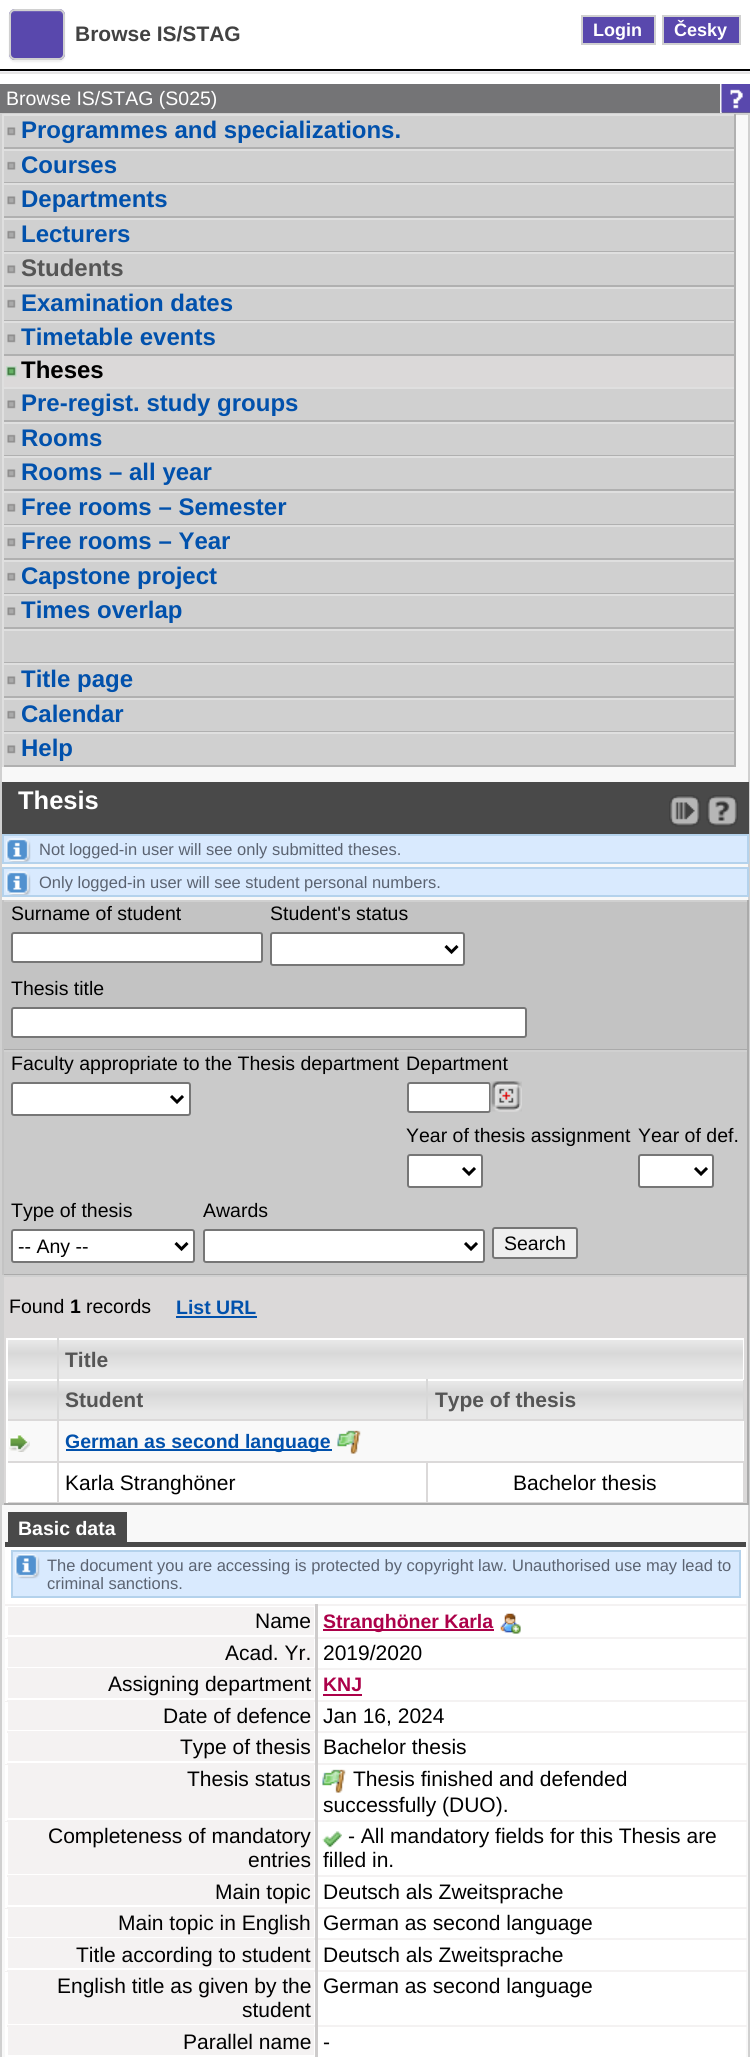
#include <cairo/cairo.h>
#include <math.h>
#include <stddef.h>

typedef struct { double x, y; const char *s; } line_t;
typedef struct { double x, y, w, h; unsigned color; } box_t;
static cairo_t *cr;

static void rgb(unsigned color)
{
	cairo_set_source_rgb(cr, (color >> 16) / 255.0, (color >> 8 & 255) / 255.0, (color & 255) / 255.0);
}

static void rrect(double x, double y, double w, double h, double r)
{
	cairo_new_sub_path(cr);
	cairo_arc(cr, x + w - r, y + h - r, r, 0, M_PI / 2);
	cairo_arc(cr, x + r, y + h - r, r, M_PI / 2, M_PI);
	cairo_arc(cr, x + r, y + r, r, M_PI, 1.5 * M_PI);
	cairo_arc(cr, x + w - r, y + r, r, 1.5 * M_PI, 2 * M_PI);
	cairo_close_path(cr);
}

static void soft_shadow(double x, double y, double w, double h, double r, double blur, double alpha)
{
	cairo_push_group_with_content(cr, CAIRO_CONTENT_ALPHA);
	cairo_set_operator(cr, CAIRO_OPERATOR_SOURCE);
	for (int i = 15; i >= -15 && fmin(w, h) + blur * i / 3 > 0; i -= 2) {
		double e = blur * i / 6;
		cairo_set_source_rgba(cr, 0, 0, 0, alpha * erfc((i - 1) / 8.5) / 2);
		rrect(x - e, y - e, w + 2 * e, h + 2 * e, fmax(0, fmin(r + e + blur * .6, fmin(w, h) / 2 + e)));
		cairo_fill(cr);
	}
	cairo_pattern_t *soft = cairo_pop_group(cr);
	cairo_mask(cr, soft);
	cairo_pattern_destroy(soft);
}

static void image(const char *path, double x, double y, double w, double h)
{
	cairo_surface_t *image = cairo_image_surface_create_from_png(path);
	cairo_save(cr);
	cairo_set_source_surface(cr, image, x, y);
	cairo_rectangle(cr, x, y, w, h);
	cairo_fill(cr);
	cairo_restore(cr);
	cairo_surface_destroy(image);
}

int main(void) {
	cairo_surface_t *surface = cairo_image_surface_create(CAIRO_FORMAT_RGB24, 750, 2057);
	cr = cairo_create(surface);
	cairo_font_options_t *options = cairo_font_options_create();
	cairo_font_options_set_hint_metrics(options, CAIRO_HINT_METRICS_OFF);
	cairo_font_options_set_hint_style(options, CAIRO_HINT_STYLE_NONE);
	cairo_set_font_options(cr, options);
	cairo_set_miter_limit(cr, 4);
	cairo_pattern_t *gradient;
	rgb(0xffffff);
	cairo_paint(cr);
	rgb(0x000000);
	cairo_rectangle(cr, 0, 69, 750, 2);
	cairo_fill(cr);
	rgb(0x000000);
	soft_shadow(9, 11, 56, 51, 6, 1, 0.07);
	rgb(0x5948ad);
	rrect(9, 9, 56, 51, 6);
	cairo_fill(cr);
	rgb(0x7263b9);
	cairo_new_path(cr);
	cairo_move_to(cr, 15, 12);
	cairo_line_to(cr, 58, 12);
	cairo_curve_to(cr, 61, 12, 63, 14, 63, 16);
	cairo_curve_to(cr, 63, 13, 61, 11, 58, 11);
	cairo_line_to(cr, 16, 11);
	cairo_curve_to(cr, 14, 11, 13, 12, 12, 13);
	cairo_close_path(cr);
	cairo_fill(cr);
	rrect(10, 10, 54, 49, 5);
	rgb(0xd0d0d0);
	cairo_stroke(cr);
	rgb(0x5948ad);
	cairo_rectangle(cr, 582, 16, 73, 28);
	cairo_fill_preserve(cr);
	rgb(0xd0d0d0);
	cairo_stroke(cr);
	rgb(0x5948ad);
	cairo_rectangle(cr, 663, 16, 77, 28);
	cairo_fill_preserve(cr);
	rgb(0xd0d0d0);
	cairo_stroke(cr);
	{
		static const box_t items[] = {
			{0, 71, 750, 1, 0xf0f0f5},
			{0, 72, 750, 2, 0xe6e5e5},
			{0, 84, 750, 29, 0x747476},
			{720, 84, 2, 29, 0xf5f5f5},
		};
		for (size_t i = 0; i < sizeof items / sizeof *items; i++) {
			rgb(items[i].color);
			cairo_rectangle(cr, items[i].x, items[i].y, items[i].w, items[i].h);
			cairo_fill(cr);
		}
	}
	image("img/1.png", 721, 84, 29, 29);
	rgb(0xf8f8f8);
	cairo_rectangle(cr, 1, 114, 748, 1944);
	cairo_fill_preserve(cr);
	rgb(0xd0d0d0);
	cairo_stroke(cr);
	cairo_rectangle(cr, 4, 116, 730, 31);
	cairo_fill(cr);
	image("img/2.png", 7, 127, 9, 9);
	{
		static const box_t items[] = {
			{2, 114, 733, 2, 0xdfdfdf},
			{734, 114, 2, 35, 0xb0b0b0},
			{2, 147, 733, 2, 0xb0b0b0},
			{2, 114, 2, 35, 0xdfdfdf},
			{4, 151, 730, 31, 0xd0d0d0},
		};
		for (size_t i = 0; i < sizeof items / sizeof *items; i++) {
			rgb(items[i].color);
			cairo_rectangle(cr, items[i].x, items[i].y, items[i].w, items[i].h);
			cairo_fill(cr);
		}
	}
	image("img/3.png", 7, 161, 9, 9);
	{
		static const box_t items[] = {
			{2, 149, 733, 2, 0xdfdfdf},
			{734, 149, 2, 34, 0xb0b0b0},
			{2, 182, 733, 1, 0xb0b0b0},
			{2, 149, 2, 34, 0xdfdfdf},
			{4, 185, 730, 31, 0xd0d0d0},
		};
		for (size_t i = 0; i < sizeof items / sizeof *items; i++) {
			rgb(items[i].color);
			cairo_rectangle(cr, items[i].x, items[i].y, items[i].w, items[i].h);
			cairo_fill(cr);
		}
	}
	image("img/2.png", 7, 196, 9, 9);
	{
		static const box_t items[] = {
			{2, 183, 733, 2, 0xdfdfdf},
			{734, 183, 2, 35, 0xb0b0b0},
			{2, 216, 733, 2, 0xb0b0b0},
			{2, 183, 2, 35, 0xdfdfdf},
			{4, 220, 730, 31, 0xd0d0d0},
		};
		for (size_t i = 0; i < sizeof items / sizeof *items; i++) {
			rgb(items[i].color);
			cairo_rectangle(cr, items[i].x, items[i].y, items[i].w, items[i].h);
			cairo_fill(cr);
		}
	}
	image("img/3.png", 7, 230, 9, 9);
	{
		static const box_t items[] = {
			{2, 218, 733, 2, 0xdfdfdf},
			{734, 218, 2, 34, 0xb0b0b0},
			{2, 251, 733, 1, 0xb0b0b0},
			{2, 218, 2, 34, 0xdfdfdf},
			{4, 254, 730, 31, 0xd0d0d0},
		};
		for (size_t i = 0; i < sizeof items / sizeof *items; i++) {
			rgb(items[i].color);
			cairo_rectangle(cr, items[i].x, items[i].y, items[i].w, items[i].h);
			cairo_fill(cr);
		}
	}
	image("img/2.png", 7, 265, 9, 9);
	{
		static const box_t items[] = {
			{2, 252, 733, 2, 0xdfdfdf},
			{734, 252, 2, 35, 0xb0b0b0},
			{2, 285, 733, 2, 0xb0b0b0},
			{2, 252, 2, 35, 0xdfdfdf},
			{4, 289, 730, 31, 0xd0d0d0},
		};
		for (size_t i = 0; i < sizeof items / sizeof *items; i++) {
			rgb(items[i].color);
			cairo_rectangle(cr, items[i].x, items[i].y, items[i].w, items[i].h);
			cairo_fill(cr);
		}
	}
	image("img/3.png", 7, 299, 9, 9);
	{
		static const box_t items[] = {
			{2, 287, 733, 2, 0xdfdfdf},
			{734, 287, 2, 34, 0xb0b0b0},
			{2, 320, 733, 1, 0xb0b0b0},
			{2, 287, 2, 34, 0xdfdfdf},
			{4, 323, 730, 31, 0xd0d0d0},
		};
		for (size_t i = 0; i < sizeof items / sizeof *items; i++) {
			rgb(items[i].color);
			cairo_rectangle(cr, items[i].x, items[i].y, items[i].w, items[i].h);
			cairo_fill(cr);
		}
	}
	image("img/2.png", 7, 334, 9, 9);
	{
		static const box_t items[] = {
			{2, 321, 733, 2, 0xdfdfdf},
			{734, 321, 2, 66, 0xb0b0b0},
			{2, 354, 733, 2, 0xb0b0b0},
			{2, 321, 2, 66, 0xdfdfdf},
			{4, 356, 730, 31, 0xdbd9d9},
		};
		for (size_t i = 0; i < sizeof items / sizeof *items; i++) {
			rgb(items[i].color);
			cairo_rectangle(cr, items[i].x, items[i].y, items[i].w, items[i].h);
			cairo_fill(cr);
		}
	}
	image("img/4.png", 6, 366, 11, 11);
	rgb(0xd0d0d0);
	cairo_rectangle(cr, 4, 389, 730, 31);
	cairo_fill(cr);
	image("img/2.png", 7, 400, 9, 9);
	{
		static const box_t items[] = {
			{2, 387, 733, 2, 0xdfdfdf},
			{734, 387, 2, 35, 0xb0b0b0},
			{2, 420, 733, 2, 0xb0b0b0},
			{2, 387, 2, 35, 0xdfdfdf},
			{4, 424, 730, 31, 0xd0d0d0},
		};
		for (size_t i = 0; i < sizeof items / sizeof *items; i++) {
			rgb(items[i].color);
			cairo_rectangle(cr, items[i].x, items[i].y, items[i].w, items[i].h);
			cairo_fill(cr);
		}
	}
	image("img/3.png", 7, 434, 9, 9);
	{
		static const box_t items[] = {
			{2, 422, 733, 2, 0xdfdfdf},
			{734, 422, 2, 34, 0xb0b0b0},
			{2, 455, 733, 1, 0xb0b0b0},
			{2, 422, 2, 34, 0xdfdfdf},
			{4, 458, 730, 31, 0xd0d0d0},
		};
		for (size_t i = 0; i < sizeof items / sizeof *items; i++) {
			rgb(items[i].color);
			cairo_rectangle(cr, items[i].x, items[i].y, items[i].w, items[i].h);
			cairo_fill(cr);
		}
	}
	image("img/2.png", 7, 469, 9, 9);
	{
		static const box_t items[] = {
			{2, 456, 733, 2, 0xdfdfdf},
			{734, 456, 2, 35, 0xb0b0b0},
			{2, 489, 733, 2, 0xb0b0b0},
			{2, 456, 2, 35, 0xdfdfdf},
			{4, 493, 730, 31, 0xd0d0d0},
		};
		for (size_t i = 0; i < sizeof items / sizeof *items; i++) {
			rgb(items[i].color);
			cairo_rectangle(cr, items[i].x, items[i].y, items[i].w, items[i].h);
			cairo_fill(cr);
		}
	}
	image("img/3.png", 7, 503, 9, 9);
	{
		static const box_t items[] = {
			{2, 491, 733, 2, 0xdfdfdf},
			{734, 491, 2, 34, 0xb0b0b0},
			{2, 524, 733, 1, 0xb0b0b0},
			{2, 491, 2, 34, 0xdfdfdf},
			{4, 527, 730, 31, 0xd0d0d0},
		};
		for (size_t i = 0; i < sizeof items / sizeof *items; i++) {
			rgb(items[i].color);
			cairo_rectangle(cr, items[i].x, items[i].y, items[i].w, items[i].h);
			cairo_fill(cr);
		}
	}
	image("img/2.png", 7, 538, 9, 9);
	{
		static const box_t items[] = {
			{2, 525, 733, 2, 0xdfdfdf},
			{734, 525, 2, 35, 0xb0b0b0},
			{2, 558, 733, 2, 0xb0b0b0},
			{2, 525, 2, 35, 0xdfdfdf},
			{4, 562, 730, 31, 0xd0d0d0},
		};
		for (size_t i = 0; i < sizeof items / sizeof *items; i++) {
			rgb(items[i].color);
			cairo_rectangle(cr, items[i].x, items[i].y, items[i].w, items[i].h);
			cairo_fill(cr);
		}
	}
	image("img/3.png", 7, 572, 9, 9);
	{
		static const box_t items[] = {
			{2, 560, 733, 2, 0xdfdfdf},
			{734, 560, 2, 34, 0xb0b0b0},
			{2, 593, 733, 1, 0xb0b0b0},
			{2, 560, 2, 34, 0xdfdfdf},
			{4, 596, 730, 31, 0xd0d0d0},
		};
		for (size_t i = 0; i < sizeof items / sizeof *items; i++) {
			rgb(items[i].color);
			cairo_rectangle(cr, items[i].x, items[i].y, items[i].w, items[i].h);
			cairo_fill(cr);
		}
	}
	image("img/2.png", 7, 607, 9, 9);
	{
		static const box_t items[] = {
			{2, 594, 733, 2, 0xdfdfdf},
			{734, 594, 2, 35, 0xb0b0b0},
			{2, 627, 733, 2, 0xb0b0b0},
			{2, 594, 2, 35, 0xdfdfdf},
			{4, 631, 730, 31, 0xd0d0d0},
			{2, 629, 733, 2, 0xdfdfdf},
			{734, 629, 2, 34, 0xb0b0b0},
			{2, 662, 733, 1, 0xb0b0b0},
			{2, 629, 2, 34, 0xdfdfdf},
			{4, 665, 730, 31, 0xd0d0d0},
		};
		for (size_t i = 0; i < sizeof items / sizeof *items; i++) {
			rgb(items[i].color);
			cairo_rectangle(cr, items[i].x, items[i].y, items[i].w, items[i].h);
			cairo_fill(cr);
		}
	}
	image("img/2.png", 7, 676, 9, 9);
	{
		static const box_t items[] = {
			{2, 663, 733, 2, 0xdfdfdf},
			{734, 663, 2, 35, 0xb0b0b0},
			{2, 696, 733, 2, 0xb0b0b0},
			{2, 663, 2, 35, 0xdfdfdf},
			{4, 700, 730, 31, 0xd0d0d0},
		};
		for (size_t i = 0; i < sizeof items / sizeof *items; i++) {
			rgb(items[i].color);
			cairo_rectangle(cr, items[i].x, items[i].y, items[i].w, items[i].h);
			cairo_fill(cr);
		}
	}
	image("img/3.png", 7, 710, 9, 9);
	{
		static const box_t items[] = {
			{2, 698, 733, 2, 0xdfdfdf},
			{734, 698, 2, 34, 0xb0b0b0},
			{2, 731, 733, 1, 0xb0b0b0},
			{2, 698, 2, 34, 0xdfdfdf},
			{4, 734, 730, 31, 0xd0d0d0},
		};
		for (size_t i = 0; i < sizeof items / sizeof *items; i++) {
			rgb(items[i].color);
			cairo_rectangle(cr, items[i].x, items[i].y, items[i].w, items[i].h);
			cairo_fill(cr);
		}
	}
	image("img/2.png", 7, 745, 9, 9);
	{
		static const box_t items[] = {
			{2, 732, 733, 2, 0xdfdfdf},
			{734, 732, 2, 35, 0xb0b0b0},
			{2, 765, 733, 2, 0xb0b0b0},
			{2, 732, 2, 35, 0xdfdfdf},
			{2, 782, 747, 52, 0x494949},
		};
		for (size_t i = 0; i < sizeof items / sizeof *items; i++) {
			rgb(items[i].color);
			cairo_rectangle(cr, items[i].x, items[i].y, items[i].w, items[i].h);
			cairo_fill(cr);
		}
	}
	image("img/5.png", 669, 795, 32, 32);
	image("img/6.png", 706, 795, 32, 32);
	rgb(0xd9eafe);
	cairo_rectangle(cr, 4, 836, 743, 26);
	cairo_fill(cr);
	image("img/7.png", 5, 838, 26, 24);
	cairo_rectangle(cr, 3, 835, 745, 28);
	rgb(0xb4d2ec);
	cairo_stroke(cr);
	rgb(0xd9eafe);
	cairo_rectangle(cr, 4, 869, 743, 26);
	cairo_fill(cr);
	image("img/7.png", 5, 871, 26, 24);
	cairo_rectangle(cr, 3, 868, 745, 28);
	rgb(0xb4d2ec);
	cairo_stroke(cr);
	{
		static const box_t items[] = {
			{4, 902, 743, 147, 0xc3c3c3},
			{2, 900, 747, 2, 0xd0d0d0},
			{747, 900, 2, 150, 0xaaaaaa},
			{2, 1049, 747, 1, 0xaaaaaa},
			{2, 900, 2, 150, 0xc3c3c3},
		};
		for (size_t i = 0; i < sizeof items / sizeof *items; i++) {
			rgb(items[i].color);
			cairo_rectangle(cr, items[i].x, items[i].y, items[i].w, items[i].h);
			cairo_fill(cr);
		}
	}
	rgb(0xffffff);
	rrect(12, 933, 250, 29, 2);
	cairo_fill_preserve(cr);
	rgb(0x767676);
	cairo_stroke(cr);
	rgb(0xffffff);
	rrect(271, 933, 193, 32, 2);
	cairo_fill_preserve(cr);
	rgb(0x767676);
	cairo_stroke(cr);
	cairo_new_path(cr);
	cairo_move_to(cr, 445.5, 946);
	cairo_line_to(cr, 451.5, 952);
	cairo_line_to(cr, 457.5, 946);
	rgb(0x000000);
	cairo_set_line_width(cr, 3);
	cairo_stroke(cr);
	rgb(0xffffff);
	rrect(12, 1008, 514, 29, 2);
	cairo_fill_preserve(cr);
	rgb(0x767676);
	cairo_set_line_width(cr, 2);
	cairo_stroke(cr);
	{
		static const box_t items[] = {
			{4, 1052, 743, 222, 0xcacaca},
			{2, 1050, 747, 2, 0xd0d0d0},
			{747, 1050, 2, 225, 0xaaaaaa},
			{2, 1274, 747, 1, 0xaaaaaa},
			{2, 1050, 2, 225, 0xc3c3c3},
		};
		for (size_t i = 0; i < sizeof items / sizeof *items; i++) {
			rgb(items[i].color);
			cairo_rectangle(cr, items[i].x, items[i].y, items[i].w, items[i].h);
			cairo_fill(cr);
		}
	}
	rgb(0xffffff);
	rrect(12, 1083, 178, 32, 2);
	cairo_fill_preserve(cr);
	rgb(0x767676);
	cairo_stroke(cr);
	cairo_new_path(cr);
	cairo_move_to(cr, 171, 1096);
	cairo_line_to(cr, 177, 1102);
	cairo_line_to(cr, 183, 1096);
	rgb(0x000000);
	cairo_set_line_width(cr, 3);
	cairo_stroke(cr);
	rgb(0xffffff);
	rrect(408, 1083, 82, 29, 2);
	cairo_fill_preserve(cr);
	rgb(0x767676);
	cairo_set_line_width(cr, 2);
	cairo_stroke(cr);
	image("img/8.png", 490, 1081, 32, 31);
	rgb(0xffffff);
	rrect(408, 1155, 74, 32, 2);
	cairo_fill_preserve(cr);
	rgb(0x767676);
	cairo_stroke(cr);
	cairo_new_path(cr);
	cairo_move_to(cr, 463, 1168);
	cairo_line_to(cr, 469, 1174);
	cairo_line_to(cr, 475, 1168);
	rgb(0x000000);
	cairo_set_line_width(cr, 3);
	cairo_stroke(cr);
	rgb(0xffffff);
	rrect(639, 1155, 74, 32, 2);
	cairo_fill_preserve(cr);
	rgb(0x767676);
	cairo_set_line_width(cr, 2);
	cairo_stroke(cr);
	cairo_new_path(cr);
	cairo_move_to(cr, 695, 1168);
	cairo_line_to(cr, 701, 1174);
	cairo_line_to(cr, 707, 1168);
	rgb(0x000000);
	cairo_set_line_width(cr, 3);
	cairo_stroke(cr);
	rgb(0xffffff);
	rrect(12, 1230, 182, 32, 2);
	cairo_fill_preserve(cr);
	rgb(0x767676);
	cairo_set_line_width(cr, 2);
	cairo_stroke(cr);
	cairo_new_path(cr);
	cairo_move_to(cr, 175.5, 1243);
	cairo_line_to(cr, 181.5, 1249);
	cairo_line_to(cr, 187.5, 1243);
	rgb(0x000000);
	cairo_set_line_width(cr, 3);
	cairo_stroke(cr);
	rgb(0xffffff);
	rrect(204, 1230, 280, 32, 2);
	cairo_fill_preserve(cr);
	rgb(0x767676);
	cairo_set_line_width(cr, 2);
	cairo_stroke(cr);
	cairo_new_path(cr);
	cairo_move_to(cr, 465, 1243);
	cairo_line_to(cr, 471, 1249);
	cairo_line_to(cr, 477, 1243);
	rgb(0x000000);
	cairo_set_line_width(cr, 3);
	cairo_stroke(cr);
	rgb(0xefefef);
	rrect(493, 1228, 84, 30, 2);
	cairo_fill_preserve(cr);
	rgb(0x767676);
	cairo_set_line_width(cr, 2);
	cairo_stroke(cr);
	{
		static const box_t items[] = {
			{4, 1277, 743, 226, 0xdbd9d9},
			{2, 1275, 747, 2, 0xd0d0d0},
			{747, 1275, 2, 230, 0xaaaaaa},
			{2, 1503, 747, 2, 0xaaaaaa},
			{2, 1275, 2, 230, 0xd0d0d0},
			{176, 1316, 81, 2, 0x0151ac},
			{6, 1338, 737, 164, 0xffffff},
			{8, 1340, 49, 1, 0xe8e8e8},
		};
		for (size_t i = 0; i < sizeof items / sizeof *items; i++) {
			rgb(items[i].color);
			cairo_rectangle(cr, items[i].x, items[i].y, items[i].w, items[i].h);
			cairo_fill(cr);
		}
	}
	gradient = cairo_pattern_create_linear(32, 1341, 32, 1380);
	cairo_pattern_add_color_stop_rgba(gradient, 0, 0.91, 0.91, 0.91, 1);
	cairo_pattern_add_color_stop_rgba(gradient, 0.31, 0.847, 0.847, 0.847, 1);
	cairo_pattern_add_color_stop_rgba(gradient, 0.77, 0.91, 0.91, 0.91, 1);
	cairo_set_source(cr, gradient);
	cairo_pattern_destroy(gradient);
	cairo_rectangle(cr, 8, 1341, 49, 38);
	cairo_fill(cr);
	rgb(0xe8e8e8);
	cairo_rectangle(cr, 59, 1340, 684, 1);
	cairo_fill(cr);
	gradient = cairo_pattern_create_linear(401, 1341, 401, 1380);
	cairo_pattern_add_color_stop_rgba(gradient, 0, 0.91, 0.91, 0.91, 1);
	cairo_pattern_add_color_stop_rgba(gradient, 0.31, 0.847, 0.847, 0.847, 1);
	cairo_pattern_add_color_stop_rgba(gradient, 0.77, 0.91, 0.91, 0.91, 1);
	cairo_set_source(cr, gradient);
	cairo_pattern_destroy(gradient);
	cairo_rectangle(cr, 59, 1341, 684, 38);
	cairo_fill(cr);
	{
		static const box_t items[] = {
			{743, 1379, 1, 2, 0xffffff},
			{57, 1419, 687, 2, 0xdbd9d9},
			{743, 1419, 1, 44, 0xffffff},
			{743, 1379, 1, 42, 0xd8d8d8},
			{743, 1338, 1, 42, 0xffffff},
			{8, 1381, 49, 1, 0xe8e8e8},
		};
		for (size_t i = 0; i < sizeof items / sizeof *items; i++) {
			rgb(items[i].color);
			cairo_rectangle(cr, items[i].x, items[i].y, items[i].w, items[i].h);
			cairo_fill(cr);
		}
	}
	gradient = cairo_pattern_create_linear(32, 1382, 32, 1421);
	cairo_pattern_add_color_stop_rgba(gradient, 0, 0.91, 0.91, 0.91, 1);
	cairo_pattern_add_color_stop_rgba(gradient, 0.31, 0.847, 0.847, 0.847, 1);
	cairo_pattern_add_color_stop_rgba(gradient, 0.77, 0.91, 0.91, 0.91, 1);
	cairo_set_source(cr, gradient);
	cairo_pattern_destroy(gradient);
	cairo_rectangle(cr, 8, 1382, 49, 37);
	cairo_fill(cr);
	{
		static const box_t items[] = {
			{8, 1421, 735, 40, 0xf9f9f9},
			{57, 1461, 2, 42, 0xdbd9d9},
			{426, 1461, 2, 42, 0xdbd9d9},
			{57, 1461, 687, 2, 0xdbd9d9},
			{57, 1419, 2, 44, 0xdbd9d9},
			{6, 1419, 53, 2, 0xdbd9d9},
			{57, 1338, 2, 83, 0xd8d8d8},
			{59, 1381, 367, 1, 0xe8e8e8},
		};
		for (size_t i = 0; i < sizeof items / sizeof *items; i++) {
			rgb(items[i].color);
			cairo_rectangle(cr, items[i].x, items[i].y, items[i].w, items[i].h);
			cairo_fill(cr);
		}
	}
	gradient = cairo_pattern_create_linear(242, 1382, 242, 1421);
	cairo_pattern_add_color_stop_rgba(gradient, 0, 0.91, 0.91, 0.91, 1);
	cairo_pattern_add_color_stop_rgba(gradient, 0.31, 0.847, 0.847, 0.847, 1);
	cairo_pattern_add_color_stop_rgba(gradient, 0.77, 0.91, 0.91, 0.91, 1);
	cairo_set_source(cr, gradient);
	cairo_pattern_destroy(gradient);
	cairo_rectangle(cr, 59, 1382, 367, 37);
	cairo_fill(cr);
	rgb(0xd8d8d8);
	cairo_rectangle(cr, 426, 1379, 2, 42);
	cairo_fill(cr);
	rgb(0xe8e8e8);
	cairo_rectangle(cr, 428, 1381, 315, 1);
	cairo_fill(cr);
	gradient = cairo_pattern_create_linear(586, 1382, 586, 1421);
	cairo_pattern_add_color_stop_rgba(gradient, 0, 0.91, 0.91, 0.91, 1);
	cairo_pattern_add_color_stop_rgba(gradient, 0.31, 0.847, 0.847, 0.847, 1);
	cairo_pattern_add_color_stop_rgba(gradient, 0.77, 0.91, 0.91, 0.91, 1);
	cairo_set_source(cr, gradient);
	cairo_pattern_destroy(gradient);
	cairo_rectangle(cr, 428, 1382, 315, 37);
	cairo_fill(cr);
	rgb(0xdbd9d9);
	cairo_rectangle(cr, 6, 1461, 53, 2);
	cairo_fill(cr);
	rgb(0xffffff);
	cairo_rectangle(cr, 6, 1419, 2, 44);
	cairo_fill(cr);
	image("img/9.png", 9, 1434, 21, 18);
	rgb(0x0151ac);
	cairo_rectangle(cr, 66, 1449, 266, 2);
	cairo_fill(cr);
	image("img/10.png", 337, 1430, 24, 24);
	{
		static const box_t items[] = {
			{6, 1502, 2, 1, 0xffffff},
			{8, 1512, 119, 30, 0x494949},
			{5, 1547, 741, 510, 0xffffff},
			{5, 1542, 741, 5, 0x494949},
			{5, 1604, 742, 2, 0xf4f2f2},
			{13, 1552, 726, 44, 0xd9eafe},
		};
		for (size_t i = 0; i < sizeof items / sizeof *items; i++) {
			rgb(items[i].color);
			cairo_rectangle(cr, items[i].x, items[i].y, items[i].w, items[i].h);
			cairo_fill(cr);
		}
	}
	image("img/11.png", 14, 1554, 26, 25);
	cairo_rectangle(cr, 12, 1551, 728, 46);
	rgb(0xb4d2ec);
	cairo_stroke(cr);
	{
		static const box_t items[] = {
			{8, 1607, 306, 28, 0xf4f2f2},
			{5, 1637, 742, 2, 0xf4f2f2},
			{5, 1637, 2, 1, 0xffffff},
			{323, 1629, 171, 2, 0xac0149},
		};
		for (size_t i = 0; i < sizeof items / sizeof *items; i++) {
			rgb(items[i].color);
			cairo_rectangle(cr, items[i].x, items[i].y, items[i].w, items[i].h);
			cairo_fill(cr);
		}
	}
	image("img/12.png", 500, 1613, 21, 21);
	{
		static const box_t items[] = {
			{8, 1639, 306, 28, 0xf4f2f2},
			{5, 1668, 742, 2, 0xf4f2f2},
			{5, 1668, 2, 2, 0xffffff},
			{8, 1670, 306, 28, 0xf4f2f2},
			{5, 1700, 742, 2, 0xf4f2f2},
			{5, 1700, 2, 1, 0xffffff},
			{323, 1694, 39, 2, 0xac0149},
			{8, 1702, 306, 28, 0xf4f2f2},
			{5, 1731, 742, 2, 0xf4f2f2},
			{5, 1731, 2, 2, 0xffffff},
			{8, 1733, 306, 28, 0xf4f2f2},
			{5, 1763, 742, 2, 0xf4f2f2},
			{5, 1763, 2, 1, 0xffffff},
			{8, 1765, 306, 53, 0xf4f2f2},
			{5, 1820, 742, 2, 0xf4f2f2},
			{5, 1820, 2, 1, 0xffffff},
		};
		for (size_t i = 0; i < sizeof items / sizeof *items; i++) {
			rgb(items[i].color);
			cairo_rectangle(cr, items[i].x, items[i].y, items[i].w, items[i].h);
			cairo_fill(cr);
		}
	}
	image("img/13.png", 322, 1769, 24, 24);
	{
		static const box_t items[] = {
			{8, 1822, 306, 52, 0xf4f2f2},
			{5, 1875, 742, 2, 0xf4f2f2},
			{5, 1875, 2, 2, 0xffffff},
		};
		for (size_t i = 0; i < sizeof items / sizeof *items; i++) {
			rgb(items[i].color);
			cairo_rectangle(cr, items[i].x, items[i].y, items[i].w, items[i].h);
			cairo_fill(cr);
		}
	}
	image("img/14.png", 322, 1831, 20, 17);
	{
		static const box_t items[] = {
			{8, 1877, 306, 28, 0xf4f2f2},
			{5, 1907, 742, 2, 0xf4f2f2},
			{5, 1907, 2, 1, 0xffffff},
			{8, 1909, 306, 28, 0xf4f2f2},
			{5, 1938, 742, 2, 0xf4f2f2},
			{5, 1938, 2, 2, 0xffffff},
			{8, 1940, 306, 28, 0xf4f2f2},
			{5, 1970, 742, 2, 0xf4f2f2},
			{5, 1970, 2, 1, 0xffffff},
			{8, 1972, 306, 52, 0xf4f2f2},
			{5, 2025, 742, 2, 0xf4f2f2},
			{5, 2025, 2, 2, 0xffffff},
			{8, 2027, 306, 28, 0xf4f2f2},
			{315, 1604, 3, 453, 0xcecccc},
		};
		for (size_t i = 0; i < sizeof items / sizeof *items; i++) {
			rgb(items[i].color);
			cairo_rectangle(cr, items[i].x, items[i].y, items[i].w, items[i].h);
			cairo_fill(cr);
		}
	}
	cairo_select_font_face(cr, "Liberation Sans", CAIRO_FONT_SLANT_NORMAL, CAIRO_FONT_WEIGHT_BOLD);
	cairo_set_font_size(cr, 21);
	rgb(0x424242);
	cairo_move_to(cr, 75, 41);
	cairo_show_text(cr, "Browse IS/STAG");
	cairo_set_font_size(cr, 18);
	rgb(0xffffff);
	cairo_move_to(cr, 593, 36);
	cairo_show_text(cr, "Login");
	cairo_move_to(cr, 674, 36);
	cairo_show_text(cr, "Česky");
	cairo_select_font_face(cr, "Liberation Sans", CAIRO_FONT_SLANT_NORMAL, CAIRO_FONT_WEIGHT_NORMAL);
	cairo_set_font_size(cr, 19.5);
	cairo_move_to(cr, 6, 105);
	cairo_show_text(cr, "Browse IS/STAG (S025)");
	cairo_select_font_face(cr, "Liberation Sans", CAIRO_FONT_SLANT_NORMAL, CAIRO_FONT_WEIGHT_BOLD);
	cairo_set_font_size(cr, 24);
	rgb(0x0151ac);
	{
		static const line_t items[] = {
			{21, 138, "Programmes and specializations."},
			{21, 173, "Courses"},
			{21, 207, "Departments"},
			{21, 242, "Lecturers"},
		};
		for (size_t i = 0; i < sizeof items / sizeof *items; i++) {
			cairo_move_to(cr, items[i].x, items[i].y);
			cairo_show_text(cr, items[i].s);
		}
	}
	rgb(0x555555);
	cairo_move_to(cr, 21, 276);
	cairo_show_text(cr, "Students");
	rgb(0x0151ac);
	cairo_move_to(cr, 21, 311);
	cairo_show_text(cr, "Examination dates");
	cairo_move_to(cr, 21, 345);
	cairo_show_text(cr, "Timetable events");
	rgb(0x000000);
	cairo_move_to(cr, 21, 378);
	cairo_show_text(cr, "Theses");
	rgb(0x0151ac);
	{
		static const line_t items[] = {
			{21, 411, "Pre-regist. study groups"},
			{21, 446, "Rooms"},
			{21, 480, "Rooms – all year"},
			{21, 515, "Free rooms – Semester"},
			{21, 549, "Free rooms – Year"},
			{21, 584, "Capstone project"},
			{21, 618, "Times overlap"},
			{21, 687, "Title page"},
			{21, 722, "Calendar"},
			{21, 756, "Help"},
		};
		for (size_t i = 0; i < sizeof items / sizeof *items; i++) {
			cairo_move_to(cr, items[i].x, items[i].y);
			cairo_show_text(cr, items[i].s);
		}
	}
	cairo_set_font_size(cr, 25.5);
	rgb(0xffffff);
	cairo_move_to(cr, 18, 809);
	cairo_show_text(cr, "Thesis");
	cairo_select_font_face(cr, "Liberation Sans", CAIRO_FONT_SLANT_NORMAL, CAIRO_FONT_WEIGHT_NORMAL);
	cairo_set_font_size(cr, 16.5);
	rgb(0x5b6371);
	cairo_move_to(cr, 39, 855);
	cairo_show_text(cr, "Not logged-in user will see only submitted theses.");
	cairo_move_to(cr, 39, 888);
	cairo_show_text(cr, "Only logged-in user will see student personal numbers.");
	cairo_set_font_size(cr, 19.5);
	rgb(0x000000);
	{
		static const line_t items[] = {
			{11, 920, "Surname of student"},
			{270, 920, "Student's status"},
			{11, 995, "Thesis title"},
			{11, 1070, "Faculty appropriate to the Thesis department"},
			{406, 1070, "Department"},
			{406, 1142, "Year of thesis assignment"},
			{638, 1142, "Year of def."},
			{11, 1217, "Type of thesis"},
			{18, 1253, "-- Any --"},
			{203, 1217, "Awards"},
			{504, 1250, "Search"},
			{9, 1313, "Found"},
		};
		for (size_t i = 0; i < sizeof items / sizeof *items; i++) {
			cairo_move_to(cr, items[i].x, items[i].y);
			cairo_show_text(cr, items[i].s);
		}
	}
	cairo_select_font_face(cr, "Liberation Sans", CAIRO_FONT_SLANT_NORMAL, CAIRO_FONT_WEIGHT_BOLD);
	cairo_move_to(cr, 70, 1313);
	cairo_show_text(cr, "1");
	cairo_select_font_face(cr, "Liberation Sans", CAIRO_FONT_SLANT_NORMAL, CAIRO_FONT_WEIGHT_NORMAL);
	cairo_move_to(cr, 86, 1313);
	cairo_show_text(cr, "records");
	cairo_select_font_face(cr, "Liberation Sans", CAIRO_FONT_SLANT_NORMAL, CAIRO_FONT_WEIGHT_BOLD);
	rgb(0x0151ac);
	cairo_move_to(cr, 176, 1314);
	cairo_show_text(cr, "List URL");
	cairo_set_font_size(cr, 21);
	rgb(0x555555);
	{
		static const line_t items[] = {
			{65, 1367, "Title"},
			{65, 1407, "Student"},
			{435, 1407, "Type of thesis"},
		};
		for (size_t i = 0; i < sizeof items / sizeof *items; i++) {
			cairo_move_to(cr, items[i].x, items[i].y);
			cairo_show_text(cr, items[i].s);
		}
	}
	cairo_set_font_size(cr, 19.5);
	rgb(0x0151ac);
	cairo_move_to(cr, 65, 1448);
	cairo_show_text(cr, "German as second language");
	cairo_select_font_face(cr, "Liberation Sans", CAIRO_FONT_SLANT_NORMAL, CAIRO_FONT_WEIGHT_NORMAL);
	cairo_set_font_size(cr, 21);
	rgb(0x000000);
	cairo_move_to(cr, 65, 1490);
	cairo_show_text(cr, "Karla Stranghöner");
	cairo_move_to(cr, 513, 1490);
	cairo_show_text(cr, "Bachelor thesis");
	cairo_select_font_face(cr, "Liberation Sans", CAIRO_FONT_SLANT_NORMAL, CAIRO_FONT_WEIGHT_BOLD);
	cairo_set_font_size(cr, 19.5);
	rgb(0xffffff);
	cairo_move_to(cr, 18, 1535);
	cairo_show_text(cr, "Basic data");
	cairo_select_font_face(cr, "Liberation Sans", CAIRO_FONT_SLANT_NORMAL, CAIRO_FONT_WEIGHT_NORMAL);
	cairo_set_font_size(cr, 16.5);
	rgb(0x5b6371);
	cairo_move_to(cr, 47, 1571);
	cairo_show_text(cr, "The document you are accessing is protected by copyright law. Unauthorised use may lead to");
	cairo_move_to(cr, 47, 1589);
	cairo_show_text(cr, "criminal sanctions.");
	cairo_set_font_size(cr, 21);
	rgb(0x000000);
	cairo_move_to(cr, 255, 1628);
	cairo_show_text(cr, "Name");
	cairo_select_font_face(cr, "Liberation Sans", CAIRO_FONT_SLANT_NORMAL, CAIRO_FONT_WEIGHT_BOLD);
	cairo_set_font_size(cr, 19.5);
	rgb(0xac0149);
	cairo_move_to(cr, 323, 1628);
	cairo_show_text(cr, "Stranghöner Karla");
	cairo_select_font_face(cr, "Liberation Sans", CAIRO_FONT_SLANT_NORMAL, CAIRO_FONT_WEIGHT_NORMAL);
	cairo_set_font_size(cr, 21);
	rgb(0x000000);
	{
		static const line_t items[] = {
			{225, 1660, "Acad. Yr."},
			{323, 1660, "2019/2020"},
			{108, 1691, "Assigning department"},
		};
		for (size_t i = 0; i < sizeof items / sizeof *items; i++) {
			cairo_move_to(cr, items[i].x, items[i].y);
			cairo_show_text(cr, items[i].s);
		}
	}
	cairo_select_font_face(cr, "Liberation Sans", CAIRO_FONT_SLANT_NORMAL, CAIRO_FONT_WEIGHT_BOLD);
	cairo_set_font_size(cr, 19.5);
	rgb(0xac0149);
	cairo_move_to(cr, 323, 1691);
	cairo_show_text(cr, "KNJ");
	cairo_select_font_face(cr, "Liberation Sans", CAIRO_FONT_SLANT_NORMAL, CAIRO_FONT_WEIGHT_NORMAL);
	cairo_set_font_size(cr, 21);
	rgb(0x000000);
	{
		static const line_t items[] = {
			{163, 1723, "Date of defence"},
			{323, 1723, "Jan 16, 2024"},
			{180, 1754, "Type of thesis"},
			{323, 1754, "Bachelor thesis"},
			{187, 1786, "Thesis status"},
			{353, 1786, "Thesis finished and defended"},
			{323, 1812, "successfully (DUO)."},
			{48, 1843, "Completeness of mandatory"},
			{248, 1867, "entries"},
			{348, 1843, "- All mandatory fields for this Thesis are"},
			{323, 1867, "filled in."},
			{215, 1899, "Main topic"},
			{323, 1899, "Deutsch als Zweitsprache"},
			{118, 1930, "Main topic in English"},
			{323, 1930, "German as second language"},
			{76, 1962, "Title according to student"},
			{323, 1962, "Deutsch als Zweitsprache"},
			{57, 1993, "English title as given by the"},
			{242, 2017, "student"},
			{323, 1993, "German as second language"},
			{183, 2049, "Parallel name"},
			{323, 2049, "-"},
		};
		for (size_t i = 0; i < sizeof items / sizeof *items; i++) {
			cairo_move_to(cr, items[i].x, items[i].y);
			cairo_show_text(cr, items[i].s);
		}
	}
	cairo_surface_write_to_png(surface, "page.png");
	cairo_font_options_destroy(options);
	cairo_destroy(cr);
	cairo_surface_destroy(surface);
	return 0;
}
